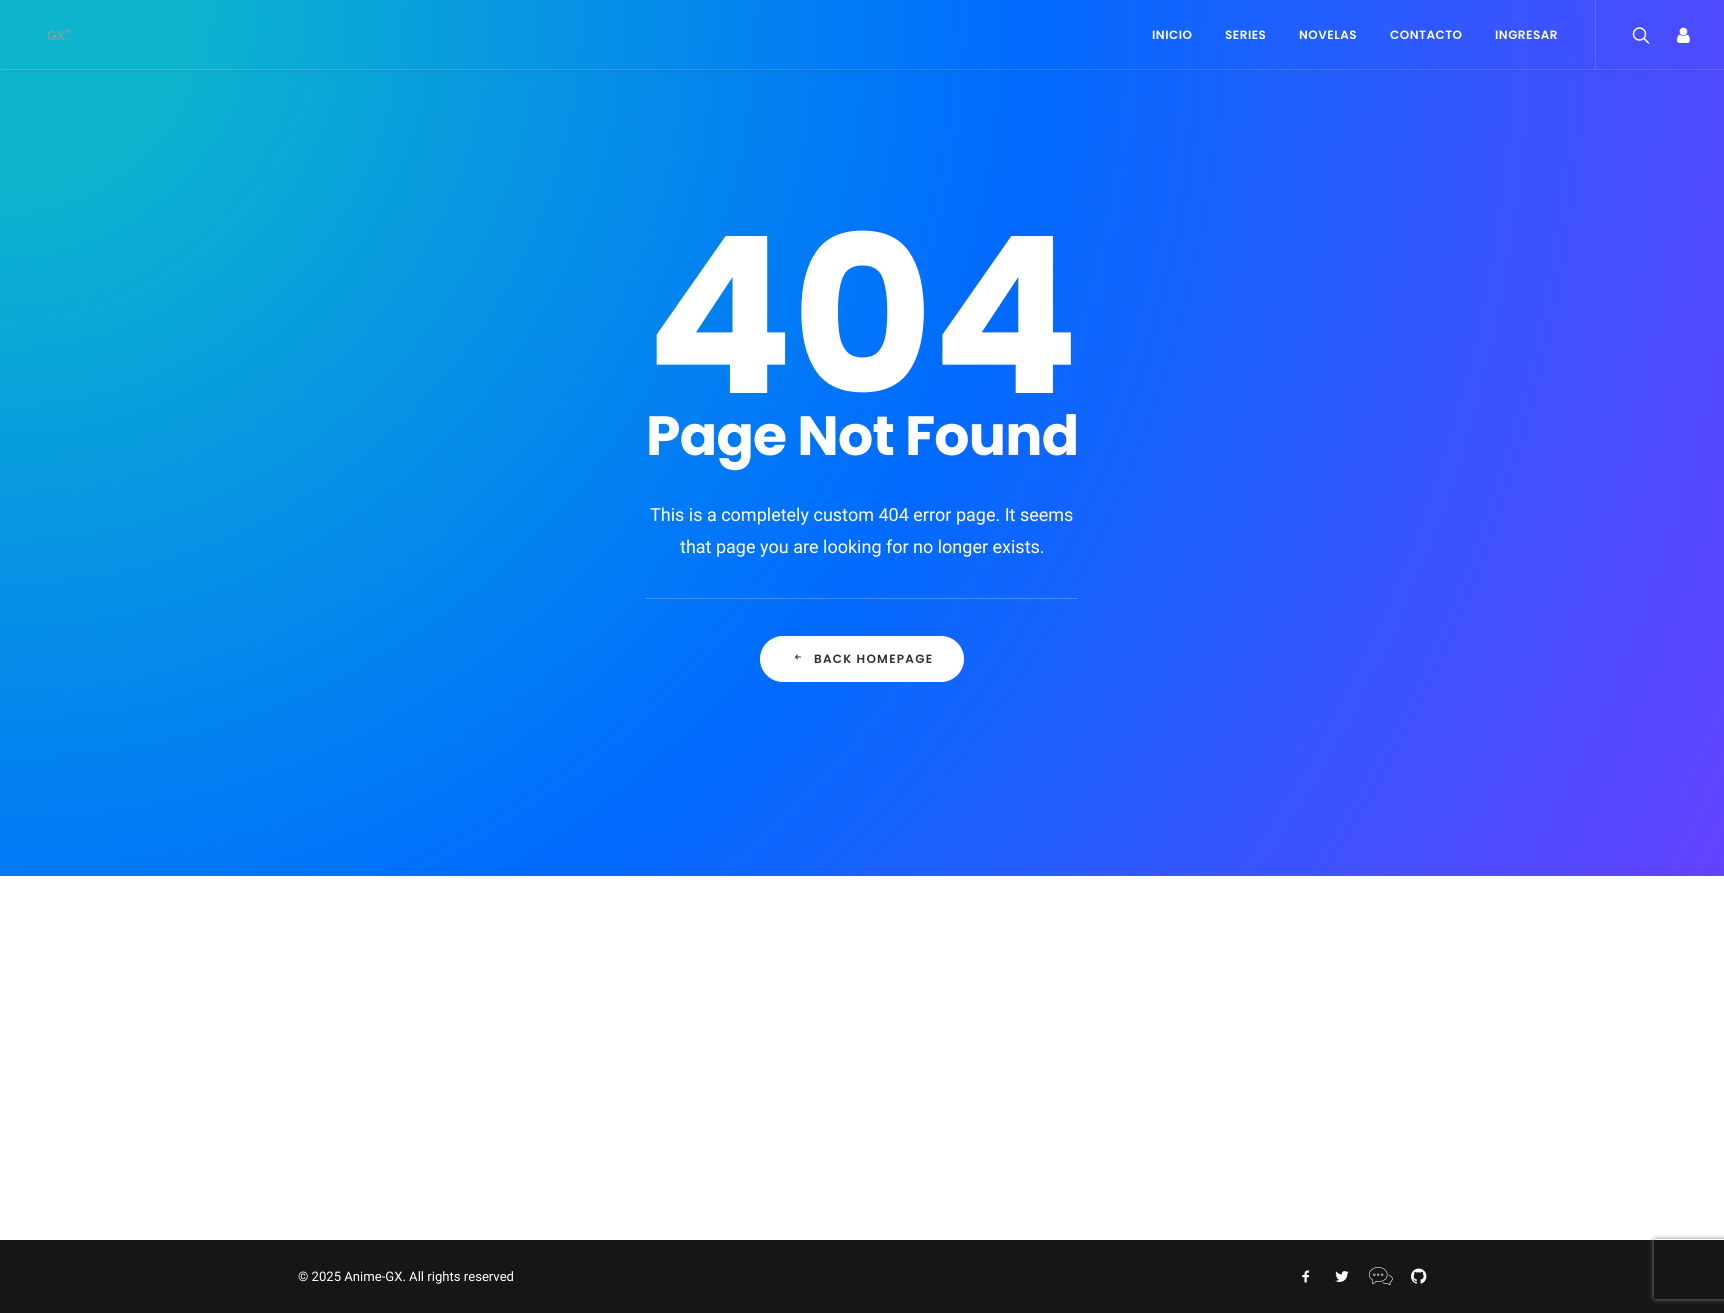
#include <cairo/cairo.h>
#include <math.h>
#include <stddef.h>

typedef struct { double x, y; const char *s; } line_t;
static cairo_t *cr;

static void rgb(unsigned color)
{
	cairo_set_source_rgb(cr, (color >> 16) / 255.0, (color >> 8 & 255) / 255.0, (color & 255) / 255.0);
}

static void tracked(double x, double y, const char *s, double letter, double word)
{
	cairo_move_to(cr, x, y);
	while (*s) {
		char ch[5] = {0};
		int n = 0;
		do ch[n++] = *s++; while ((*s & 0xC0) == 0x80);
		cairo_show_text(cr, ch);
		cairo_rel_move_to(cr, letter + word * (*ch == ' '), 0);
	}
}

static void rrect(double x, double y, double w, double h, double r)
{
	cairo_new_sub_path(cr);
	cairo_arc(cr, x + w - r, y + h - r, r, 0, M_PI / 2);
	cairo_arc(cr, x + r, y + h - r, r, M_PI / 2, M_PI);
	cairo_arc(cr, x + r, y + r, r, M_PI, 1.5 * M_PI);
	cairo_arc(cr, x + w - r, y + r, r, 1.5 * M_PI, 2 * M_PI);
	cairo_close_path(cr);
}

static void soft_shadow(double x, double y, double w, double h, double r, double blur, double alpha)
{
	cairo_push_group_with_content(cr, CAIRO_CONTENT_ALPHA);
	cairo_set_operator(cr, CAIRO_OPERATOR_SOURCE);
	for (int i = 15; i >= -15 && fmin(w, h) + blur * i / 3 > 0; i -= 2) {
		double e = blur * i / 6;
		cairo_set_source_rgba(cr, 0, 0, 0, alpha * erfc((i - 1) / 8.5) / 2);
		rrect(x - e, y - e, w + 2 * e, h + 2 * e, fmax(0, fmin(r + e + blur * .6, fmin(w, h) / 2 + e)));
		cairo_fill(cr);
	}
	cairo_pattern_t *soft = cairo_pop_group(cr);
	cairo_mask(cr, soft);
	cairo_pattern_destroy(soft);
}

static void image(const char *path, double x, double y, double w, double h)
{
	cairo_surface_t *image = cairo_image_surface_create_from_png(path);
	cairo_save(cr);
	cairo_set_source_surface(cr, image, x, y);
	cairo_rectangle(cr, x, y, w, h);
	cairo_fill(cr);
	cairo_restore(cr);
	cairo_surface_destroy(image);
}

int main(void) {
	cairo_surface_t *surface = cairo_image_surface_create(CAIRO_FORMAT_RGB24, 1724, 1313);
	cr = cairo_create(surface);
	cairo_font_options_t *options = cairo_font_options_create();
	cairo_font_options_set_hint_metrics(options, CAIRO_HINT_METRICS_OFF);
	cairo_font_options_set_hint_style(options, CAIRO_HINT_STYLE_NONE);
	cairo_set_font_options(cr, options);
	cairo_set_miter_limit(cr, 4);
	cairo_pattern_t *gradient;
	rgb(0x141618);
	cairo_paint(cr);
	gradient = cairo_pattern_create_radial(-2, 0, 0, -2, 0, 1937);
	cairo_pattern_add_color_stop_rgba(gradient, 0.09, 0.047, 0.706, 0.808, 1);
	cairo_pattern_add_color_stop_rgba(gradient, 0.48, 0, 0.424, 1, 1);
	cairo_pattern_add_color_stop_rgba(gradient, 0.91, 0.392, 0.259, 1, 1);
	cairo_set_source(cr, gradient);
	cairo_pattern_destroy(gradient);
	cairo_rectangle(cr, 0, 0, 1724, 876);
	cairo_fill(cr);
	gradient = cairo_pattern_create_radial(-2, 0, 0, -2, 0, 2145);
	cairo_pattern_add_color_stop_rgba(gradient, 0.09, 0.047, 0.706, 0.808, 0.85);
	cairo_pattern_add_color_stop_rgba(gradient, 0.48, 0, 0.424, 1, 0.85);
	cairo_pattern_add_color_stop_rgba(gradient, 0.91, 0.392, 0.259, 1, 0.85);
	cairo_set_source(cr, gradient);
	cairo_pattern_destroy(gradient);
	cairo_rectangle(cr, 0, 0, 1724, 876);
	cairo_fill(cr);
	cairo_save(cr);
	cairo_rectangle(cr, 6, 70, 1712, 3);
	cairo_clip(cr);
	rgb(0x000000);
	soft_shadow(8, 14, 1708, 50, 0, 5, 0.6);
	cairo_restore(cr);
	cairo_set_source_rgba(cr, 1, 1, 1, 0.15);
	cairo_rectangle(cr, 0, 69, 1724, 1);
	cairo_fill(cr);
	image("img/1.png", 47, 28, 24, 13);
	rgb(0x5e6aff);
	cairo_rectangle(cr, 1595, 0, 1, 69);
	cairo_fill(cr);
	image("img/2.png", 1632, 27, 18, 17);
	image("img/3.png", 1677, 27, 13, 16);
	cairo_set_source_rgba(cr, 1, 1, 1, 0.25);
	cairo_rectangle(cr, 646, 598, 432, 1);
	cairo_fill(cr);
	rgb(0xffffff);
	rrect(760.5, 636.5, 203, 45, 22.5);
	cairo_fill_preserve(cr);
	cairo_set_line_width(cr, 1);
	cairo_stroke(cr);
	image("img/4.png", 794, 654, 7, 6);
	cairo_rectangle(cr, 0, 876, 1724, 364);
	cairo_fill(cr);
	image("img/5.png", 1302, 1270, 7, 13);
	image("img/6.png", 1335, 1271, 14, 11);
	image("img/7.png", 1369, 1267, 24, 19);
	image("img/8.png", 1411, 1268, 16, 16);
	cairo_save(cr);
	cairo_set_fill_rule(cr, CAIRO_FILL_RULE_EVEN_ODD);
	cairo_new_path(cr);
	cairo_move_to(cr, 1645, 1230);
	cairo_line_to(cr, 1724, 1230);
	cairo_line_to(cr, 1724, 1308);
	cairo_line_to(cr, 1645, 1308);
	cairo_close_path(cr);
	cairo_move_to(cr, 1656, 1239);
	cairo_line_to(cr, 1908, 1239);
	cairo_curve_to(cr, 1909, 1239, 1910, 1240, 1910, 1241);
	cairo_line_to(cr, 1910, 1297);
	cairo_curve_to(cr, 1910, 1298, 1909, 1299, 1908, 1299);
	cairo_line_to(cr, 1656, 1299);
	cairo_curve_to(cr, 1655, 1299, 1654, 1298, 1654, 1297);
	cairo_line_to(cr, 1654, 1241);
	cairo_curve_to(cr, 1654, 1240, 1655, 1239, 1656, 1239);
	cairo_close_path(cr);
	cairo_clip(cr);
	rgb(0x808080);
	soft_shadow(1654, 1239, 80, 60, 2, 2.5, 1);
	cairo_restore(cr);
	cairo_select_font_face(cr, "Poppins SemiBold", CAIRO_FONT_SLANT_NORMAL, CAIRO_FONT_WEIGHT_NORMAL);
	cairo_set_font_size(cr, 12);
	{
		static const line_t items[] = {
			{1152, 39, "INICIO"},
			{1225, 39, "SERIES"},
			{1299, 39, "NOVELAS"},
			{1390, 39, "CONTACTO"},
			{1495, 39, "INGRESAR"},
		};
		for (size_t i = 0; i < sizeof items / sizeof *items; i++) {
			tracked(items[i].x, items[i].y, items[i].s, 0.5, 0);
		}
	}
	cairo_select_font_face(cr, "Poppins", CAIRO_FONT_SLANT_NORMAL, CAIRO_FONT_WEIGHT_BOLD);
	cairo_set_font_size(cr, 218);
	tracked(646, 393, "404", -2, 0);
	cairo_set_font_size(cr, 55.25);
	tracked(646, 455, "Page Not Found", -0.8, 0);
	cairo_select_font_face(cr, "Roboto", CAIRO_FONT_SLANT_NORMAL, CAIRO_FONT_WEIGHT_NORMAL);
	cairo_set_font_size(cr, 18);
	cairo_move_to(cr, 650, 521);
	cairo_show_text(cr, "This is a completely custom 404 error page. It seems");
	cairo_move_to(cr, 680, 553);
	cairo_show_text(cr, "that page you are looking for no longer exists.");
	cairo_select_font_face(cr, "Poppins SemiBold", CAIRO_FONT_SLANT_NORMAL, CAIRO_FONT_WEIGHT_NORMAL);
	cairo_set_font_size(cr, 12);
	rgb(0x303133);
	tracked(814, 663, "BACK HOMEPAGE", 1.25, 0);
	cairo_select_font_face(cr, "Roboto", CAIRO_FONT_SLANT_NORMAL, CAIRO_FONT_WEIGHT_NORMAL);
	cairo_set_font_size(cr, 13.1);
	rgb(0xffffff);
	cairo_move_to(cr, 298, 1281);
	cairo_show_text(cr, "© 2025 Anime-GX. All rights reserved");
	cairo_surface_write_to_png(surface, "page.png");
	cairo_font_options_destroy(options);
	cairo_destroy(cr);
	cairo_surface_destroy(surface);
	return 0;
}
